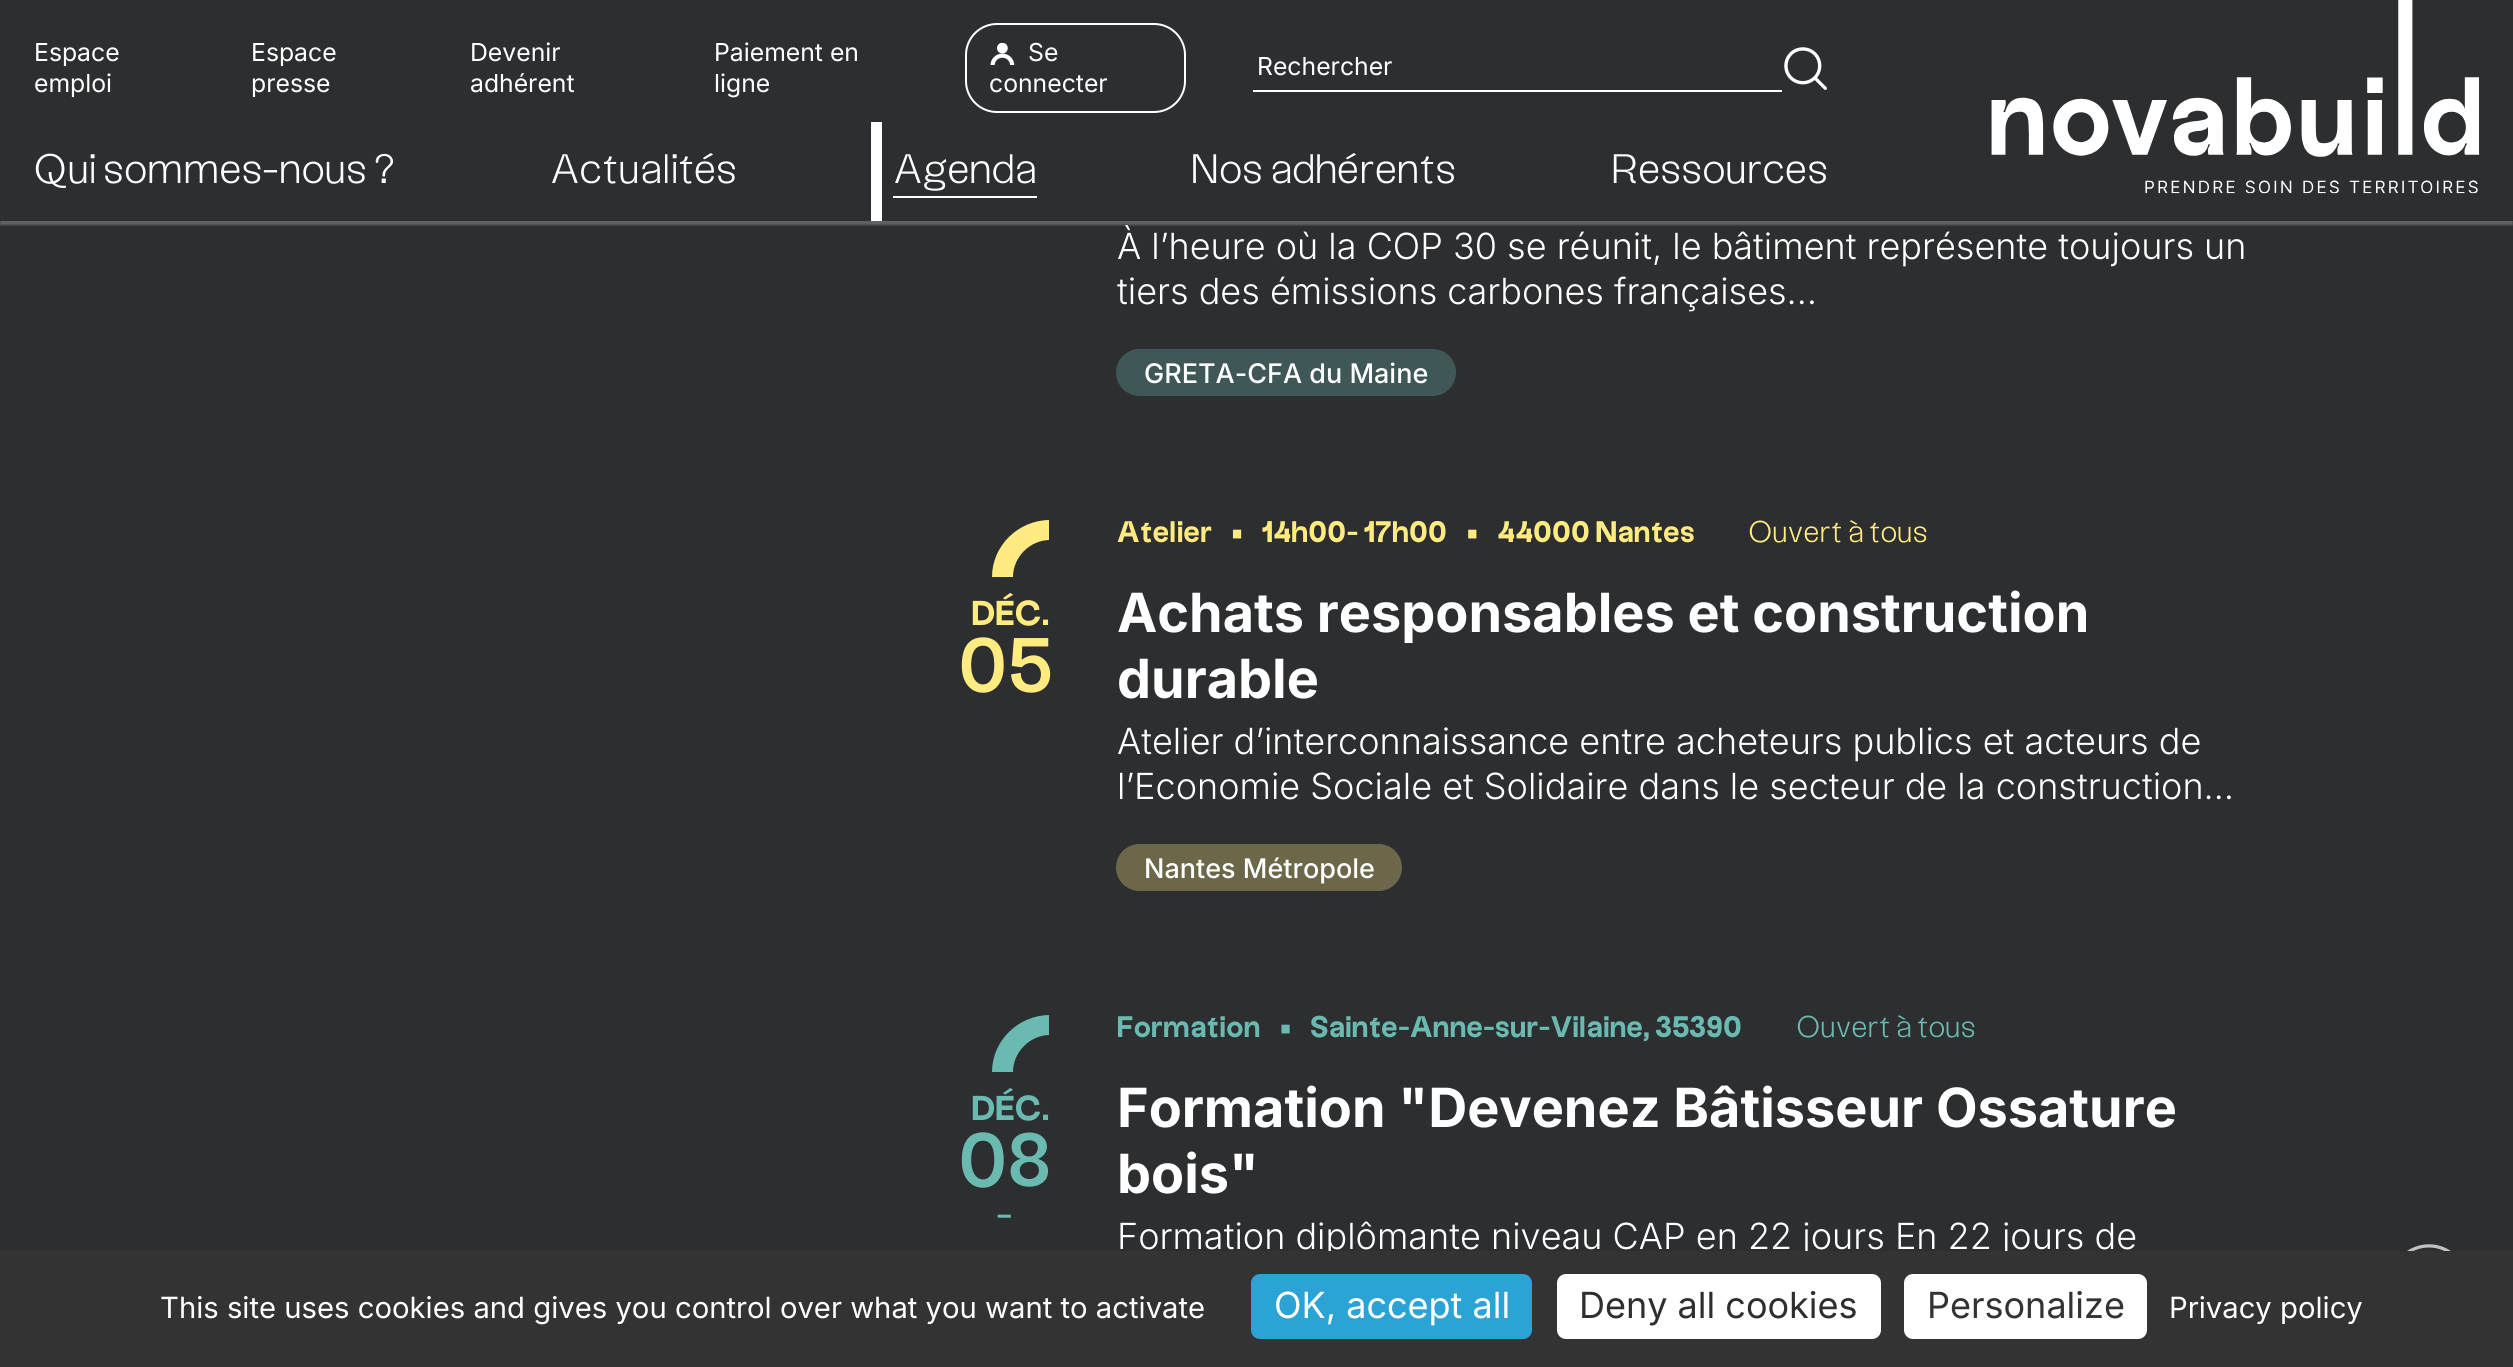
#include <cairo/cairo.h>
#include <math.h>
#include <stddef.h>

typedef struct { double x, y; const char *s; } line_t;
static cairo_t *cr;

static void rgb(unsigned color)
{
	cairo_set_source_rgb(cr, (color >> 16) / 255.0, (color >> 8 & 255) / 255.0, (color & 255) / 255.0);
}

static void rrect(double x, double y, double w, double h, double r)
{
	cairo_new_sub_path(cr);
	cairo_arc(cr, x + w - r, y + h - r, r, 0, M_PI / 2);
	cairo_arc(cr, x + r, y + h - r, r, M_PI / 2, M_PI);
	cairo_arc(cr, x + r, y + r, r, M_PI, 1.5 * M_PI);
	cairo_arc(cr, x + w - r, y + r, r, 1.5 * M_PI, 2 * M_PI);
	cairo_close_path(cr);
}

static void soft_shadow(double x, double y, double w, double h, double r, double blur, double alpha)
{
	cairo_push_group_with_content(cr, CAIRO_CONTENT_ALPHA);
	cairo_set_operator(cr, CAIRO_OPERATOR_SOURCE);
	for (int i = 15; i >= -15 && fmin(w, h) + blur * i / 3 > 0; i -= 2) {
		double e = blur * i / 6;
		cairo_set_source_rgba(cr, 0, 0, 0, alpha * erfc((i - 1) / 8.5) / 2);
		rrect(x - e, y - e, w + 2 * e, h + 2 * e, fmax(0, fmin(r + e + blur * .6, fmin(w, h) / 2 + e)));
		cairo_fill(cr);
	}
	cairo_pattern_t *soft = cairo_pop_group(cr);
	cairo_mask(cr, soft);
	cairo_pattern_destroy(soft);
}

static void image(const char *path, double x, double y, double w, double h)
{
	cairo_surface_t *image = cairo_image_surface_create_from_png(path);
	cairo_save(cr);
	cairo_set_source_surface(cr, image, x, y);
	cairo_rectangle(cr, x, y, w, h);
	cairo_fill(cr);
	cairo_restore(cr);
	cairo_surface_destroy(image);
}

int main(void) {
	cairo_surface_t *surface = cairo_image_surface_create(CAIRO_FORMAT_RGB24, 2513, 1367);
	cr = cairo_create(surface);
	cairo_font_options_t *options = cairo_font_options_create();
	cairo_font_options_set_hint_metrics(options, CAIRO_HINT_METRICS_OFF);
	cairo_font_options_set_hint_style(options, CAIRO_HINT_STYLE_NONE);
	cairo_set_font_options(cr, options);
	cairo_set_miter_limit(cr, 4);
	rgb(0x2c2e30);
	cairo_paint(cr);
	rgb(0xffffff);
	soft_shadow(0, 5, 2513, 220, 0, 1, 0.25);
	rgb(0x2c2e30);
	cairo_rectangle(cr, 0, 3, 2513, 218);
	cairo_fill(cr);
	rrect(966, 24, 219, 88, 31);
	rgb(0xffffff);
	cairo_stroke(cr);
	image("img/1.png", 990, 43, 25, 22);
	cairo_rectangle(cr, 1253, 90, 529, 2);
	cairo_fill(cr);
	image("img/2.png", 1784, 47, 43, 43);
	cairo_rectangle(cr, 871, 122, 11, 99);
	cairo_fill(cr);
	cairo_rectangle(cr, 893, 196, 144, 2);
	cairo_fill(cr);
	image("img/3.png", 1991, 0, 489, 194);
	rgb(0x3f5857);
	rrect(1116, 349, 340, 47, 23.5);
	cairo_fill(cr);
	cairo_save(cr);
	cairo_rectangle(cr, 992, 520, 57, 58);
	cairo_clip(cr);
	rgb(0xffeb80);
	cairo_set_fill_rule(cr, CAIRO_FILL_RULE_EVEN_ODD);
	cairo_new_path(cr);
	cairo_move_to(cr, 992, 577);
	cairo_curve_to(cr, 992, 546, 1018, 520, 1050, 520);
	cairo_line_to(cr, 1050, 540);
	cairo_curve_to(cr, 1030, 540, 1013, 557, 1013, 577);
	cairo_close_path(cr);
	cairo_fill(cr);
	cairo_restore(cr);
	rgb(0x6b6748);
	rrect(1116, 844, 286, 47, 23.5);
	cairo_fill(cr);
	cairo_save(cr);
	cairo_rectangle(cr, 992, 1015, 57, 58);
	cairo_clip(cr);
	rgb(0x6abab2);
	cairo_set_fill_rule(cr, CAIRO_FILL_RULE_EVEN_ODD);
	cairo_new_path(cr);
	cairo_move_to(cr, 992, 1072);
	cairo_curve_to(cr, 992, 1041, 1018, 1015, 1050, 1015);
	cairo_line_to(cr, 1050, 1035);
	cairo_curve_to(cr, 1030, 1035, 1013, 1052, 1013, 1072);
	cairo_close_path(cr);
	cairo_fill(cr);
	cairo_restore(cr);
	image("img/4.png", 2407, 1244, 44, 7);
	cairo_select_font_face(cr, "Inter", CAIRO_FONT_SLANT_NORMAL, CAIRO_FONT_WEIGHT_NORMAL);
	cairo_set_font_size(cr, 24.75);
	rgb(0xffffff);
	{
		static const line_t items[] = {
			{34, 61, "Espace"},
			{34, 92, "emploi"},
			{251, 61, "Espace"},
			{251, 92, "presse"},
			{470, 61, "Devenir"},
			{470, 92, "adhérent"},
			{714, 61, "Paiement en"},
			{714, 92, "ligne"},
			{1028, 61, "Se"},
			{989, 92, "connecter"},
			{1257, 75, "Rechercher"},
		};
		for (size_t i = 0; i < sizeof items / sizeof *items; i++) {
			cairo_move_to(cr, items[i].x, items[i].y);
			cairo_show_text(cr, items[i].s);
		}
	}
	cairo_select_font_face(cr, "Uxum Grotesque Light", CAIRO_FONT_SLANT_NORMAL, CAIRO_FONT_WEIGHT_NORMAL);
	cairo_set_font_size(cr, 40.5);
	{
		static const line_t items[] = {
			{34, 183, "Qui sommes-nous ?"},
			{550, 183, "Actualités"},
			{893, 183, "Agenda"},
			{1192, 183, "Nos adhérents"},
			{1611, 183, "Ressources"},
		};
		for (size_t i = 0; i < sizeof items / sizeof *items; i++) {
			cairo_move_to(cr, items[i].x, items[i].y);
			cairo_show_text(cr, items[i].s);
		}
	}
	cairo_select_font_face(cr, "Inter Light", CAIRO_FONT_SLANT_NORMAL, CAIRO_FONT_WEIGHT_NORMAL);
	cairo_set_font_size(cr, 36);
	cairo_move_to(cr, 1117, 259);
	cairo_show_text(cr, "À l’heure où la COP 30 se réunit, le bâtiment représente toujours un");
	cairo_move_to(cr, 1117, 304);
	cairo_show_text(cr, "tiers des émissions carbones françaises…");
	cairo_select_font_face(cr, "Inter Medium", CAIRO_FONT_SLANT_NORMAL, CAIRO_FONT_WEIGHT_NORMAL);
	cairo_set_font_size(cr, 27);
	cairo_move_to(cr, 1144, 383);
	cairo_show_text(cr, "GRETA-CFA du Maine");
	cairo_select_font_face(cr, "Uxum Grotesque", CAIRO_FONT_SLANT_NORMAL, CAIRO_FONT_WEIGHT_BOLD);
	cairo_set_font_size(cr, 34);
	rgb(0xffeb80);
	cairo_move_to(cr, 972, 625);
	cairo_show_text(cr, "DÉC.");
	cairo_select_font_face(cr, "Uxum Grotesque Medium", CAIRO_FONT_SLANT_NORMAL, CAIRO_FONT_WEIGHT_NORMAL);
	cairo_set_font_size(cr, 76);
	cairo_move_to(cr, 959, 692);
	cairo_show_text(cr, "05");
	cairo_select_font_face(cr, "Uxum Grotesque", CAIRO_FONT_SLANT_NORMAL, CAIRO_FONT_WEIGHT_BOLD);
	cairo_set_font_size(cr, 29.25);
	cairo_move_to(cr, 1117, 542);
	cairo_show_text(cr, "Atelier   •   14h00- 17h00   •   44000 Nantes");
	cairo_select_font_face(cr, "Uxum Grotesque Light", CAIRO_FONT_SLANT_NORMAL, CAIRO_FONT_WEIGHT_NORMAL);
	cairo_move_to(cr, 1749, 542);
	cairo_show_text(cr, "Ouvert à tous");
	cairo_select_font_face(cr, "Inter", CAIRO_FONT_SLANT_NORMAL, CAIRO_FONT_WEIGHT_BOLD);
	cairo_set_font_size(cr, 54);
	rgb(0xffffff);
	cairo_move_to(cr, 1117, 632);
	cairo_show_text(cr, "Achats responsables et construction");
	cairo_move_to(cr, 1117, 698);
	cairo_show_text(cr, "durable");
	cairo_select_font_face(cr, "Inter Light", CAIRO_FONT_SLANT_NORMAL, CAIRO_FONT_WEIGHT_NORMAL);
	cairo_set_font_size(cr, 36);
	cairo_move_to(cr, 1117, 754);
	cairo_show_text(cr, "Atelier d’interconnaissance entre acheteurs publics et acteurs de");
	cairo_move_to(cr, 1117, 799);
	cairo_show_text(cr, "l’Economie Sociale et Solidaire dans le secteur de la construction…");
	cairo_select_font_face(cr, "Inter Medium", CAIRO_FONT_SLANT_NORMAL, CAIRO_FONT_WEIGHT_NORMAL);
	cairo_set_font_size(cr, 27);
	cairo_move_to(cr, 1144, 878);
	cairo_show_text(cr, "Nantes Métropole");
	cairo_select_font_face(cr, "Uxum Grotesque", CAIRO_FONT_SLANT_NORMAL, CAIRO_FONT_WEIGHT_BOLD);
	cairo_set_font_size(cr, 34);
	rgb(0x6abab2);
	cairo_move_to(cr, 972, 1120);
	cairo_show_text(cr, "DÉC.");
	cairo_select_font_face(cr, "Uxum Grotesque Medium", CAIRO_FONT_SLANT_NORMAL, CAIRO_FONT_WEIGHT_NORMAL);
	cairo_set_font_size(cr, 76);
	cairo_move_to(cr, 959, 1187);
	cairo_show_text(cr, "08");
	cairo_select_font_face(cr, "Uxum Grotesque", CAIRO_FONT_SLANT_NORMAL, CAIRO_FONT_WEIGHT_NORMAL);
	cairo_set_font_size(cr, 40.5);
	cairo_move_to(cr, 996, 1228);
	cairo_show_text(cr, "-");
	cairo_select_font_face(cr, "Uxum Grotesque", CAIRO_FONT_SLANT_NORMAL, CAIRO_FONT_WEIGHT_BOLD);
	cairo_set_font_size(cr, 29.25);
	cairo_move_to(cr, 1117, 1037);
	cairo_show_text(cr, "Formation   •   Sainte-Anne-sur-Vilaine, 35390");
	cairo_select_font_face(cr, "Uxum Grotesque Light", CAIRO_FONT_SLANT_NORMAL, CAIRO_FONT_WEIGHT_NORMAL);
	cairo_move_to(cr, 1797, 1037);
	cairo_show_text(cr, "Ouvert à tous");
	cairo_select_font_face(cr, "Inter", CAIRO_FONT_SLANT_NORMAL, CAIRO_FONT_WEIGHT_BOLD);
	cairo_set_font_size(cr, 54);
	rgb(0xffffff);
	cairo_move_to(cr, 1117, 1127);
	cairo_show_text(cr, "Formation \"Devenez Bâtisseur Ossature");
	cairo_move_to(cr, 1117, 1193);
	cairo_show_text(cr, "bois\"");
	cairo_select_font_face(cr, "Inter Light", CAIRO_FONT_SLANT_NORMAL, CAIRO_FONT_WEIGHT_NORMAL);
	cairo_set_font_size(cr, 36);
	cairo_move_to(cr, 1117, 1249);
	cairo_show_text(cr, "Formation diplômante niveau CAP en 22 jours En 22 jours de");
	rgb(0x333333);
	cairo_rectangle(cr, 0, 1251, 2513, 116);
	cairo_fill(cr);
	cairo_select_font_face(cr, "Inter", CAIRO_FONT_SLANT_NORMAL, CAIRO_FONT_WEIGHT_NORMAL);
	cairo_set_font_size(cr, 29.25);
	rgb(0xffffff);
	cairo_move_to(cr, 160, 1318);
	cairo_show_text(cr, "This site uses cookies and gives you control over what you want to activate");
	rgb(0x2ba3d5);
	rrect(1251, 1274, 281, 65, 9);
	cairo_fill(cr);
	cairo_set_font_size(cr, 36);
	rgb(0xffffff);
	cairo_move_to(cr, 1274, 1318);
	cairo_show_text(cr, "OK, accept all");
	rrect(1557, 1274, 324, 65, 9);
	cairo_fill(cr);
	rgb(0x2c2e30);
	cairo_move_to(cr, 1579, 1318);
	cairo_show_text(cr, "Deny all cookies");
	rgb(0xffffff);
	rrect(1904, 1274, 243, 65, 9);
	cairo_fill(cr);
	rgb(0x333333);
	cairo_move_to(cr, 1927, 1318);
	cairo_show_text(cr, "Personalize");
	cairo_set_font_size(cr, 29.25);
	rgb(0xffffff);
	cairo_move_to(cr, 2169, 1318);
	cairo_show_text(cr, "Privacy policy");
	cairo_surface_write_to_png(surface, "page.png");
	cairo_font_options_destroy(options);
	cairo_destroy(cr);
	cairo_surface_destroy(surface);
	return 0;
}
